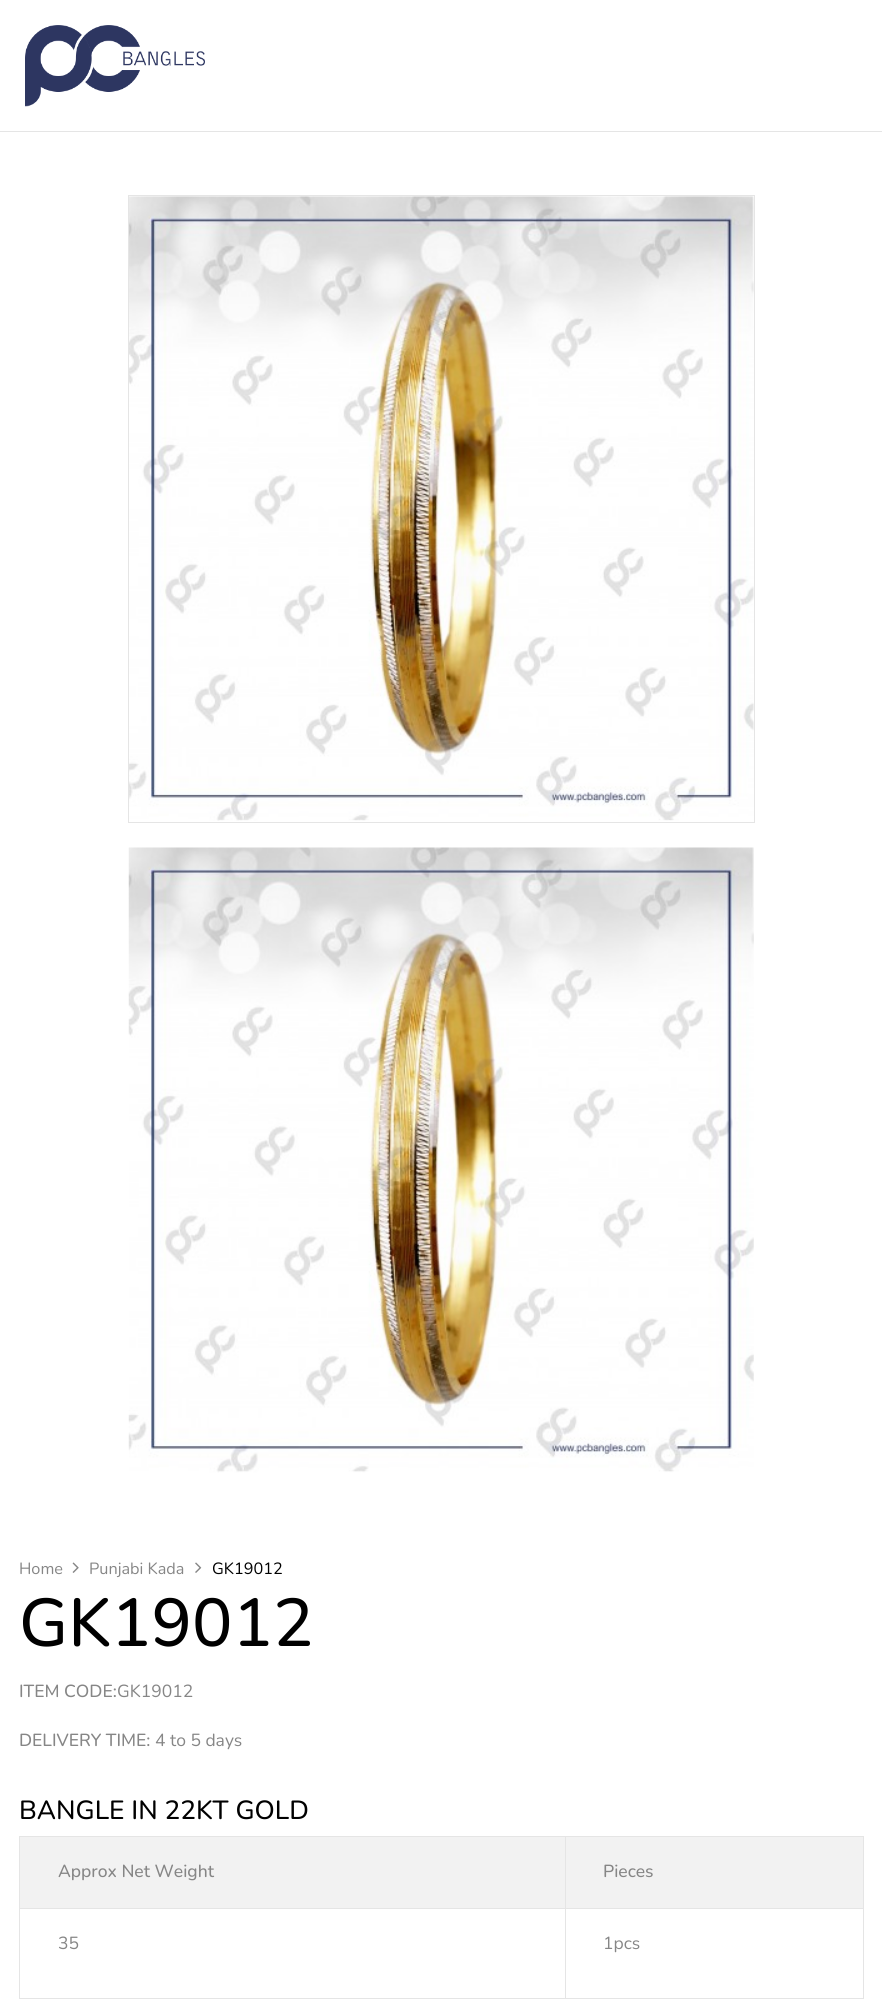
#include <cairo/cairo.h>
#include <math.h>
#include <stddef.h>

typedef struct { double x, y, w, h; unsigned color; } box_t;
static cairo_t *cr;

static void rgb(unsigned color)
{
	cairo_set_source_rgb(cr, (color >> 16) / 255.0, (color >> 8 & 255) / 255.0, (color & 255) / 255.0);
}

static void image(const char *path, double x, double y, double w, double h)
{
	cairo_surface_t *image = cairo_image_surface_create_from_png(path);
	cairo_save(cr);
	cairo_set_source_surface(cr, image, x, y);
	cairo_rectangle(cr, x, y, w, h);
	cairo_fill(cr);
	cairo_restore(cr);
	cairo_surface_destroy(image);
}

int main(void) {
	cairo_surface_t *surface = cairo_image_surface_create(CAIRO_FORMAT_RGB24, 882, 2014);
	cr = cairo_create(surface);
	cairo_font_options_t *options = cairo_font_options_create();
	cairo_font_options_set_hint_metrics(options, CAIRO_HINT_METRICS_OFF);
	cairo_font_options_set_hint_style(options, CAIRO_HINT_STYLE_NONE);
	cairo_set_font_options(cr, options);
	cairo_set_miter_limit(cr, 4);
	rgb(0xffffff);
	cairo_paint(cr);
	rgb(0xe5e5e5);
	cairo_rectangle(cr, 0, 131, 882, 1);
	cairo_fill(cr);
	image("img/1.png", 25, 25, 180, 82);
	cairo_rectangle(cr, 128.5, 195.5, 626, 627);
	cairo_set_line_width(cr, 1);
	cairo_stroke(cr);
	image("img/2.png", 129, 196, 625, 625);
	image("img/3.png", 128, 847, 626, 626);
	image("img/4.png", 72, 1562, 7, 11);
	image("img/5.png", 195, 1562, 7, 11);
	{
		static const box_t items[] = {
			{19, 1836, 845, 1, 0xe5e5e5},
			{863, 1836, 1, 163, 0xe5e5e5},
			{19, 1998, 845, 1, 0xe5e5e5},
			{19, 1836, 1, 163, 0xe5e5e5},
			{20, 1837, 843, 71, 0xf2f2f2},
			{565, 1908, 299, 1, 0xe5e5e5},
			{565, 1908, 1, 91, 0xe5e5e5},
			{19, 1908, 547, 1, 0xe5e5e5},
			{565, 1836, 1, 73, 0xe5e5e5},
		};
		for (size_t i = 0; i < sizeof items / sizeof *items; i++) {
			rgb(items[i].color);
			cairo_rectangle(cr, items[i].x, items[i].y, items[i].w, items[i].h);
			cairo_fill(cr);
		}
	}
	cairo_select_font_face(cr, "Nunito", CAIRO_FONT_SLANT_NORMAL, CAIRO_FONT_WEIGHT_NORMAL);
	cairo_set_font_size(cr, 16.25);
	rgb(0x868686);
	cairo_move_to(cr, 19, 1574);
	cairo_show_text(cr, "Home");
	cairo_move_to(cr, 89, 1574);
	cairo_show_text(cr, "Punjabi Kada");
	rgb(0x000000);
	cairo_move_to(cr, 212, 1574);
	cairo_show_text(cr, "GK19012");
	cairo_select_font_face(cr, "Nunito Medium", CAIRO_FONT_SLANT_NORMAL, CAIRO_FONT_WEIGHT_NORMAL);
	cairo_set_font_size(cr, 67.5);
	cairo_move_to(cr, 19, 1646);
	cairo_show_text(cr, "GK19012");
	cairo_set_font_size(cr, 17.5);
	rgb(0x868686);
	cairo_move_to(cr, 19, 1697);
	cairo_show_text(cr, "ITEM CODE:");
	cairo_select_font_face(cr, "Nunito", CAIRO_FONT_SLANT_NORMAL, CAIRO_FONT_WEIGHT_NORMAL);
	cairo_move_to(cr, 117, 1697);
	cairo_show_text(cr, "GK19012");
	cairo_select_font_face(cr, "Nunito Medium", CAIRO_FONT_SLANT_NORMAL, CAIRO_FONT_WEIGHT_NORMAL);
	cairo_move_to(cr, 19, 1746);
	cairo_show_text(cr, "DELIVERY TIME:");
	cairo_select_font_face(cr, "Nunito", CAIRO_FONT_SLANT_NORMAL, CAIRO_FONT_WEIGHT_NORMAL);
	cairo_move_to(cr, 155, 1746);
	cairo_show_text(cr, "4 to 5 days");
	cairo_select_font_face(cr, "Nunito Medium", CAIRO_FONT_SLANT_NORMAL, CAIRO_FONT_WEIGHT_NORMAL);
	cairo_set_font_size(cr, 26.25);
	rgb(0x000000);
	cairo_move_to(cr, 19, 1819);
	cairo_show_text(cr, "BANGLE IN 22KT GOLD");
	cairo_set_font_size(cr, 17.5);
	rgb(0x868686);
	cairo_move_to(cr, 58, 1877);
	cairo_show_text(cr, "Approx Net Weight");
	cairo_move_to(cr, 603, 1877);
	cairo_show_text(cr, "Pieces");
	cairo_select_font_face(cr, "Nunito", CAIRO_FONT_SLANT_NORMAL, CAIRO_FONT_WEIGHT_NORMAL);
	cairo_move_to(cr, 58, 1949);
	cairo_show_text(cr, "35");
	cairo_move_to(cr, 603, 1949);
	cairo_show_text(cr, "1pcs");
	cairo_surface_write_to_png(surface, "page.png");
	cairo_font_options_destroy(options);
	cairo_destroy(cr);
	cairo_surface_destroy(surface);
	return 0;
}
